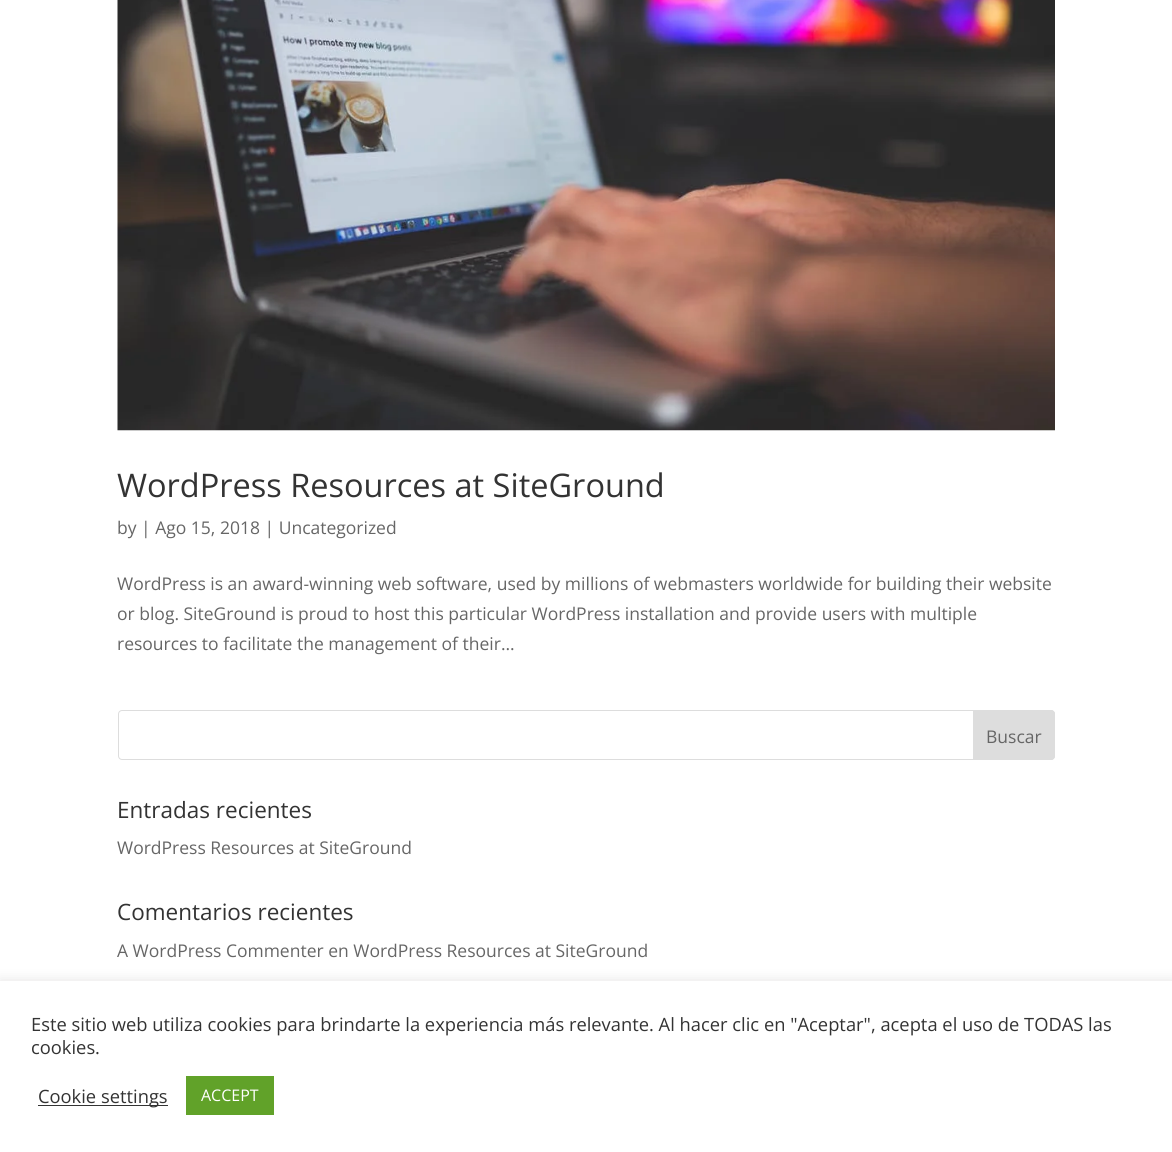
#include <cairo/cairo.h>
#include <math.h>
#include <stddef.h>

typedef struct { double x, y; const char *s; } line_t;
typedef struct { double x, y, w, h; unsigned color; } box_t;
static cairo_t *cr;

static void rgb(unsigned color)
{
	cairo_set_source_rgb(cr, (color >> 16) / 255.0, (color >> 8 & 255) / 255.0, (color & 255) / 255.0);
}

static void rrect(double x, double y, double w, double h, double r)
{
	cairo_new_sub_path(cr);
	cairo_arc(cr, x + w - r, y + h - r, r, 0, M_PI / 2);
	cairo_arc(cr, x + r, y + h - r, r, M_PI / 2, M_PI);
	cairo_arc(cr, x + r, y + r, r, M_PI, 1.5 * M_PI);
	cairo_arc(cr, x + w - r, y + r, r, 1.5 * M_PI, 2 * M_PI);
	cairo_close_path(cr);
}

static void soft_shadow(double x, double y, double w, double h, double r, double blur, double alpha)
{
	cairo_push_group_with_content(cr, CAIRO_CONTENT_ALPHA);
	cairo_set_operator(cr, CAIRO_OPERATOR_SOURCE);
	for (int i = 15; i >= -15 && fmin(w, h) + blur * i / 3 > 0; i -= 2) {
		double e = blur * i / 6;
		cairo_set_source_rgba(cr, 0, 0, 0, alpha * erfc((i - 1) / 8.5) / 2);
		rrect(x - e, y - e, w + 2 * e, h + 2 * e, fmax(0, fmin(r + e + blur * .6, fmin(w, h) / 2 + e)));
		cairo_fill(cr);
	}
	cairo_pattern_t *soft = cairo_pop_group(cr);
	cairo_mask(cr, soft);
	cairo_pattern_destroy(soft);
}

static void image(const char *path, double x, double y, double w, double h)
{
	cairo_surface_t *image = cairo_image_surface_create_from_png(path);
	cairo_save(cr);
	cairo_set_source_surface(cr, image, x, y);
	cairo_rectangle(cr, x, y, w, h);
	cairo_fill(cr);
	cairo_restore(cr);
	cairo_surface_destroy(image);
}

int main(void) {
	cairo_surface_t *surface = cairo_image_surface_create(CAIRO_FORMAT_RGB24, 1172, 1152);
	cr = cairo_create(surface);
	cairo_font_options_t *options = cairo_font_options_create();
	cairo_font_options_set_hint_metrics(options, CAIRO_HINT_METRICS_OFF);
	cairo_font_options_set_hint_style(options, CAIRO_HINT_STYLE_NONE);
	cairo_set_font_options(cr, options);
	cairo_set_miter_limit(cr, 4);
	rgb(0xffffff);
	cairo_paint(cr);
	image("img/1.png", 117, 0, 938, 431);
	rrect(118.5, 710.5, 936, 49, 3.5);
	rgb(0xdddddd);
	cairo_set_line_width(cr, 1);
	cairo_stroke(cr);
	cairo_new_path(cr);
	cairo_move_to(cr, 973.5, 710.5);
	cairo_line_to(cr, 1051, 710.5);
	cairo_curve_to(cr, 1053, 710.5, 1054.5, 712, 1054.5, 714);
	cairo_line_to(cr, 1054.5, 756);
	cairo_curve_to(cr, 1054.5, 758, 1053, 759.5, 1051, 759.5);
	cairo_line_to(cr, 973.5, 759.5);
	cairo_close_path(cr);
	cairo_fill_preserve(cr);
	cairo_stroke(cr);
	rgb(0xacabab);
	soft_shadow(0, 980, 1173, 171, 0, 6, 0.3);
	{
		static const box_t items[] = {
			{0, 981, 1172, 171, 0xffffff},
			{38, 1105, 130, 1, 0x333333},
			{186, 1076, 88, 39, 0x61a229},
		};
		for (size_t i = 0; i < sizeof items / sizeof *items; i++) {
			rgb(items[i].color);
			cairo_rectangle(cr, items[i].x, items[i].y, items[i].w, items[i].h);
			cairo_fill(cr);
		}
	}
	cairo_select_font_face(cr, "Open Sans", CAIRO_FONT_SLANT_NORMAL, CAIRO_FONT_WEIGHT_NORMAL);
	cairo_set_font_size(cr, 32.5);
	rgb(0x333333);
	cairo_move_to(cr, 117, 497);
	cairo_show_text(cr, "WordPress Resources at SiteGround");
	cairo_set_font_size(cr, 17.5);
	rgb(0x666666);
	{
		static const line_t items[] = {
			{117, 534, "by | Ago 15, 2018 | Uncategorized"},
			{117, 590, "WordPress is an award-winning web software, used by millions of webmasters worldwide for building their website"},
			{117, 620, "or blog. SiteGround is proud to host this particular WordPress installation and provide users with multiple"},
			{117, 650, "resources to facilitate the management of their..."},
			{986, 743, "Buscar"},
		};
		for (size_t i = 0; i < sizeof items / sizeof *items; i++) {
			cairo_move_to(cr, items[i].x, items[i].y);
			cairo_show_text(cr, items[i].s);
		}
	}
	cairo_set_font_size(cr, 22.5);
	rgb(0x333333);
	cairo_move_to(cr, 117, 818);
	cairo_show_text(cr, "Entradas recientes");
	cairo_set_font_size(cr, 17.5);
	rgb(0x666666);
	cairo_move_to(cr, 117, 854);
	cairo_show_text(cr, "WordPress Resources at SiteGround");
	cairo_set_font_size(cr, 22.5);
	rgb(0x333333);
	cairo_move_to(cr, 117, 920);
	cairo_show_text(cr, "Comentarios recientes");
	cairo_set_font_size(cr, 17.5);
	rgb(0x666666);
	cairo_move_to(cr, 117, 957);
	cairo_show_text(cr, "A WordPress Commenter en WordPress Resources at SiteGround");
	cairo_set_font_size(cr, 18.33);
	rgb(0x333333);
	{
		static const line_t items[] = {
			{31, 1031, "Este sitio web utiliza cookies para brindarte la experiencia más relevante. Al hacer clic en \"Aceptar\", acepta el uso de TODAS las"},
			{31, 1054, "cookies."},
			{38, 1103, "Cookie settings"},
		};
		for (size_t i = 0; i < sizeof items / sizeof *items; i++) {
			cairo_move_to(cr, items[i].x, items[i].y);
			cairo_show_text(cr, items[i].s);
		}
	}
	cairo_set_font_size(cr, 16);
	rgb(0xffffff);
	cairo_move_to(cr, 201, 1101);
	cairo_show_text(cr, "ACCEPT");
	cairo_surface_write_to_png(surface, "page.png");
	cairo_font_options_destroy(options);
	cairo_destroy(cr);
	cairo_surface_destroy(surface);
	return 0;
}
